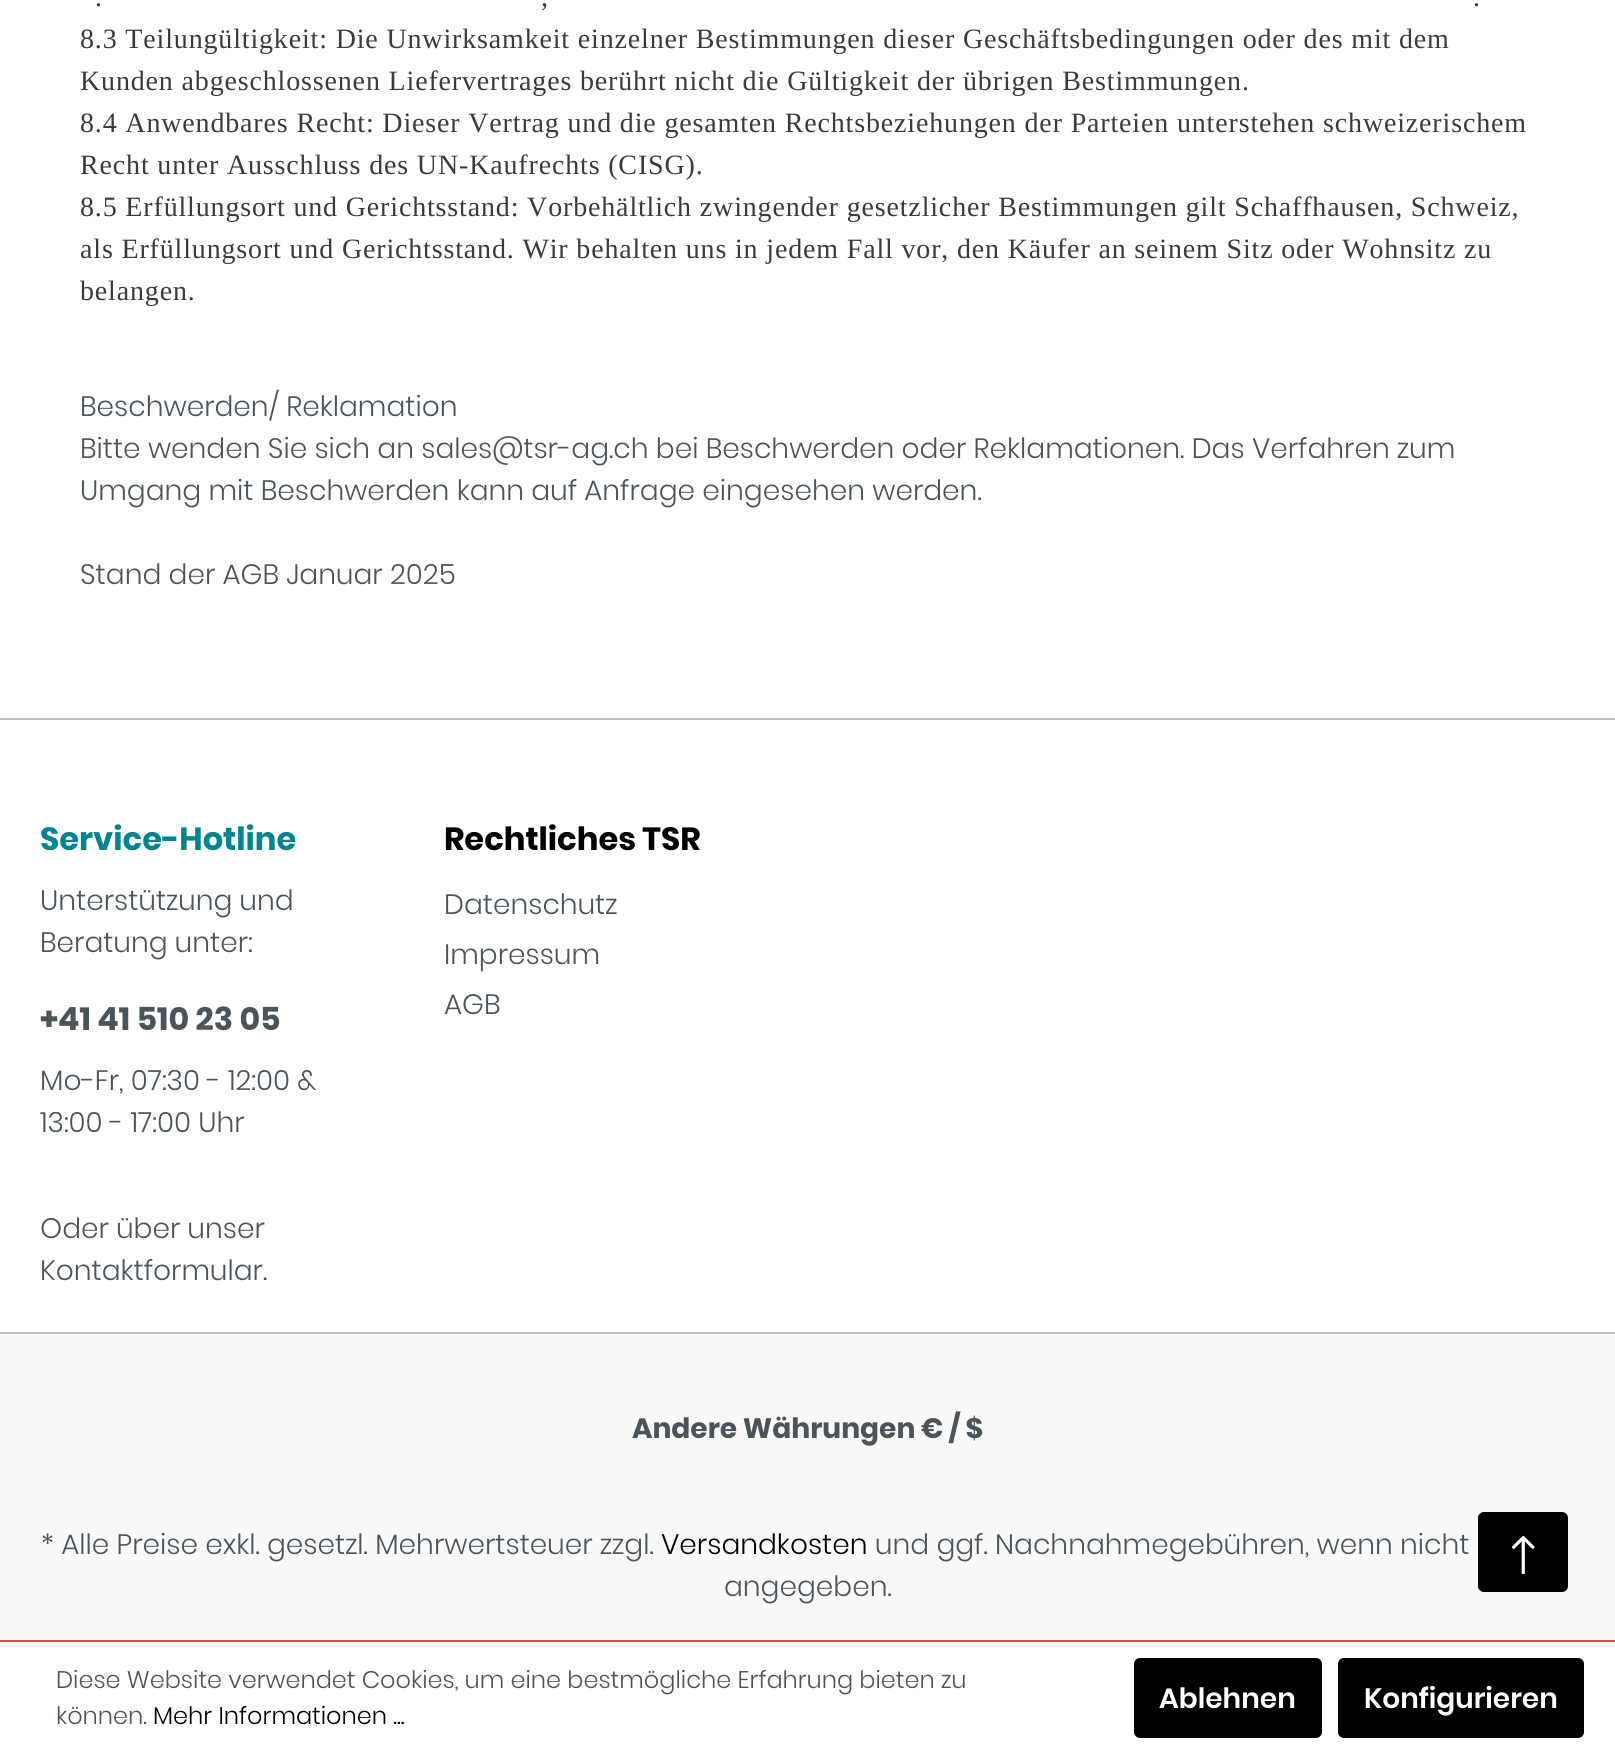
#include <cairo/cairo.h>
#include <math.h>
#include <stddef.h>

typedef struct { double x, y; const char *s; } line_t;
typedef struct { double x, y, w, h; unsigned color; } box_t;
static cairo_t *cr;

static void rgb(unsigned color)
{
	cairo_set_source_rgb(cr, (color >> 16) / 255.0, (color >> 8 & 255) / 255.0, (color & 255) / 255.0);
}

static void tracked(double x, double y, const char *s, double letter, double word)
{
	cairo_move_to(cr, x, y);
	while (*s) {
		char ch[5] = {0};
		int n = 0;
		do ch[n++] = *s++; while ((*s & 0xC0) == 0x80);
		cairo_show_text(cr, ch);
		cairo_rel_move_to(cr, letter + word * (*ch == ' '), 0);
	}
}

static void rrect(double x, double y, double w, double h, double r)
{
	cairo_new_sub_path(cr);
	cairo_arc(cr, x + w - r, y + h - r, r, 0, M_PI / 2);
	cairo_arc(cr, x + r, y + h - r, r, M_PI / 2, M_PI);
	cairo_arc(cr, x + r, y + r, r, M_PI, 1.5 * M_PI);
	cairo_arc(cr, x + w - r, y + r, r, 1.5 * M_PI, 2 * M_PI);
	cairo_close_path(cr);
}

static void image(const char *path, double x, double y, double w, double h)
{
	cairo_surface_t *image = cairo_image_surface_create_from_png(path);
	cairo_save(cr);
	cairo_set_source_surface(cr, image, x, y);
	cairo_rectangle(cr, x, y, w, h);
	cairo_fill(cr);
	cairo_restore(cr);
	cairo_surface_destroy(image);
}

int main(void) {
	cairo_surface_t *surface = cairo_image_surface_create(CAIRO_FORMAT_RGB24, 1615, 1754);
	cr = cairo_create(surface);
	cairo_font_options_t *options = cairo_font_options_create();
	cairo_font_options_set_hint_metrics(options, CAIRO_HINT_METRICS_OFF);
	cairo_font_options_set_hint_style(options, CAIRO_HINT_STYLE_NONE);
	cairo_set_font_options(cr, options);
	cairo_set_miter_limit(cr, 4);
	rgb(0xffffff);
	cairo_paint(cr);
	{
		static const box_t items[] = {
			{0, 718, 1615, 2, 0xbcc1c7},
			{0, 1332, 1615, 2, 0xbcc1c7},
			{0, 1334, 1615, 306, 0xf9f9f9},
		};
		for (size_t i = 0; i < sizeof items / sizeof *items; i++) {
			rgb(items[i].color);
			cairo_rectangle(cr, items[i].x, items[i].y, items[i].w, items[i].h);
			cairo_fill(cr);
		}
	}
	rgb(0x000000);
	rrect(1479, 1513, 88, 78, 5);
	cairo_fill_preserve(cr);
	cairo_stroke(cr);
	image("img/1.png", 1512, 1536, 23, 38);
	rgb(0xe14a33);
	cairo_rectangle(cr, 0, 1640, 1615, 2);
	cairo_fill(cr);
	rgb(0x000000);
	rrect(1135, 1659, 186, 78, 5);
	cairo_fill_preserve(cr);
	cairo_stroke(cr);
	rrect(1339, 1659, 244, 78, 5);
	cairo_fill_preserve(cr);
	cairo_stroke(cr);
	cairo_select_font_face(cr, "Liberation Serif", CAIRO_FONT_SLANT_NORMAL, CAIRO_FONT_WEIGHT_NORMAL);
	cairo_set_font_size(cr, 28);
	rgb(0x3b3b3b);
	{
		static const line_t items[] = {
			{95, 6, "."},
			{541, 6, ","},
			{1473, 6, "."},
			{80, 48, "8.3 Teilungültigkeit: Die Unwirksamkeit einzelner Bestimmungen dieser Geschäftsbedingungen oder des mit dem"},
			{80, 90, "Kunden abgeschlossenen Liefervertrages berührt nicht die Gültigkeit der übrigen Bestimmungen."},
			{80, 132, "8.4 Anwendbares Recht: Dieser Vertrag und die gesamten Rechtsbeziehungen der Parteien unterstehen schweizerischem"},
			{80, 174, "Recht unter Ausschluss des UN-Kaufrechts (CISG)."},
			{80, 216, "8.5 Erfüllungsort und Gerichtsstand: Vorbehältlich zwingender gesetzlicher Bestimmungen gilt Schaffhausen, Schweiz,"},
			{80, 258, "als Erfüllungsort und Gerichtsstand. Wir behalten uns in jedem Fall vor, den Käufer an seinem Sitz oder Wohnsitz zu"},
			{80, 300, "belangen."},
		};
		for (size_t i = 0; i < sizeof items / sizeof *items; i++) {
			tracked(items[i].x, items[i].y, items[i].s, 0.84, 0);
		}
	}
	cairo_select_font_face(cr, "Poppins Light", CAIRO_FONT_SLANT_NORMAL, CAIRO_FONT_WEIGHT_NORMAL);
	rgb(0x4a545b);
	{
		static const line_t items[] = {
			{80, 416, "Beschwerden/ Reklamation"},
			{80, 458, "Bitte wenden Sie sich an sales@tsr-ag.ch bei Beschwerden oder Reklamationen. Das Verfahren zum"},
			{80, 500, "Umgang mit Beschwerden kann auf Anfrage eingesehen werden."},
			{80, 584, "Stand der AGB Januar 2025"},
		};
		for (size_t i = 0; i < sizeof items / sizeof *items; i++) {
			cairo_move_to(cr, items[i].x, items[i].y);
			cairo_show_text(cr, items[i].s);
		}
	}
	cairo_select_font_face(cr, "Poppins", CAIRO_FONT_SLANT_NORMAL, CAIRO_FONT_WEIGHT_BOLD);
	cairo_set_font_size(cr, 32);
	rgb(0x008490);
	cairo_move_to(cr, 40, 850);
	cairo_show_text(cr, "Service-Hotline");
	cairo_select_font_face(cr, "Poppins Light", CAIRO_FONT_SLANT_NORMAL, CAIRO_FONT_WEIGHT_NORMAL);
	cairo_set_font_size(cr, 28);
	rgb(0x4a545b);
	cairo_move_to(cr, 40, 910);
	cairo_show_text(cr, "Unterstützung und");
	cairo_move_to(cr, 40, 952);
	cairo_show_text(cr, "Beratung unter:");
	cairo_select_font_face(cr, "Poppins", CAIRO_FONT_SLANT_NORMAL, CAIRO_FONT_WEIGHT_BOLD);
	cairo_set_font_size(cr, 32);
	cairo_move_to(cr, 40, 1030);
	cairo_show_text(cr, "+41 41 510 23 05");
	cairo_select_font_face(cr, "Poppins Light", CAIRO_FONT_SLANT_NORMAL, CAIRO_FONT_WEIGHT_NORMAL);
	cairo_set_font_size(cr, 28);
	{
		static const line_t items[] = {
			{40, 1090, "Mo-Fr, 07:30 - 12:00 &"},
			{40, 1132, "13:00 - 17:00 Uhr"},
			{40, 1238, "Oder über unser"},
			{40, 1280, "Kontaktformular."},
		};
		for (size_t i = 0; i < sizeof items / sizeof *items; i++) {
			cairo_move_to(cr, items[i].x, items[i].y);
			cairo_show_text(cr, items[i].s);
		}
	}
	cairo_select_font_face(cr, "Poppins", CAIRO_FONT_SLANT_NORMAL, CAIRO_FONT_WEIGHT_BOLD);
	cairo_set_font_size(cr, 32);
	rgb(0x000000);
	cairo_move_to(cr, 444, 850);
	cairo_show_text(cr, "Rechtliches TSR");
	cairo_select_font_face(cr, "Poppins Light", CAIRO_FONT_SLANT_NORMAL, CAIRO_FONT_WEIGHT_NORMAL);
	cairo_set_font_size(cr, 28);
	rgb(0x4a545b);
	{
		static const line_t items[] = {
			{444, 914, "Datenschutz"},
			{444, 964, "Impressum"},
			{444, 1014, "AGB"},
		};
		for (size_t i = 0; i < sizeof items / sizeof *items; i++) {
			cairo_move_to(cr, items[i].x, items[i].y);
			cairo_show_text(cr, items[i].s);
		}
	}
	cairo_select_font_face(cr, "Poppins", CAIRO_FONT_SLANT_NORMAL, CAIRO_FONT_WEIGHT_BOLD);
	cairo_move_to(cr, 632, 1438);
	cairo_show_text(cr, "Andere Währungen € / $");
	cairo_select_font_face(cr, "Poppins Light", CAIRO_FONT_SLANT_NORMAL, CAIRO_FONT_WEIGHT_NORMAL);
	cairo_move_to(cr, 41, 1554);
	cairo_show_text(cr, "* Alle Preise exkl. gesetzl. Mehrwertsteuer zzgl.");
	rgb(0x000000);
	cairo_move_to(cr, 661, 1554);
	cairo_show_text(cr, "Versandkosten");
	rgb(0x4a545b);
	cairo_move_to(cr, 875, 1554);
	cairo_show_text(cr, "und ggf. Nachnahmegebühren, wenn nicht");
	cairo_move_to(cr, 724, 1596);
	cairo_show_text(cr, "angegeben.");
	cairo_set_font_size(cr, 24);
	cairo_move_to(cr, 56, 1688);
	cairo_show_text(cr, "Diese Website verwendet Cookies, um eine bestmögliche Erfahrung bieten zu");
	cairo_move_to(cr, 56, 1724);
	cairo_show_text(cr, "können.");
	rgb(0x000000);
	cairo_move_to(cr, 153, 1724);
	cairo_show_text(cr, "Mehr Informationen ...");
	cairo_select_font_face(cr, "Poppins SemiBold", CAIRO_FONT_SLANT_NORMAL, CAIRO_FONT_WEIGHT_NORMAL);
	cairo_set_font_size(cr, 28);
	rgb(0xffffff);
	cairo_move_to(cr, 1159, 1708);
	cairo_show_text(cr, "Ablehnen");
	cairo_move_to(cr, 1364, 1708);
	cairo_show_text(cr, "Konfigurieren");
	cairo_surface_write_to_png(surface, "page.png");
	cairo_font_options_destroy(options);
	cairo_destroy(cr);
	cairo_surface_destroy(surface);
	return 0;
}
